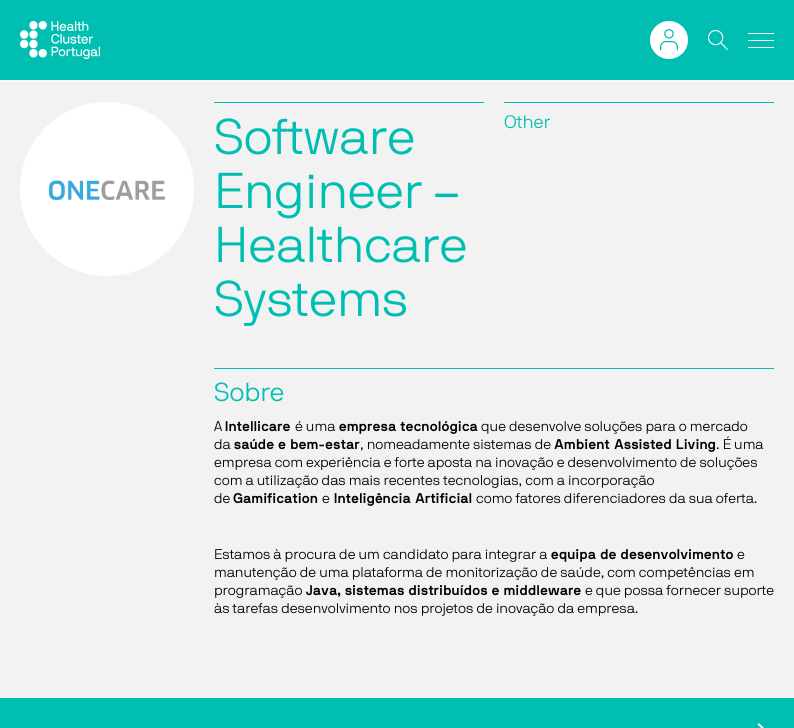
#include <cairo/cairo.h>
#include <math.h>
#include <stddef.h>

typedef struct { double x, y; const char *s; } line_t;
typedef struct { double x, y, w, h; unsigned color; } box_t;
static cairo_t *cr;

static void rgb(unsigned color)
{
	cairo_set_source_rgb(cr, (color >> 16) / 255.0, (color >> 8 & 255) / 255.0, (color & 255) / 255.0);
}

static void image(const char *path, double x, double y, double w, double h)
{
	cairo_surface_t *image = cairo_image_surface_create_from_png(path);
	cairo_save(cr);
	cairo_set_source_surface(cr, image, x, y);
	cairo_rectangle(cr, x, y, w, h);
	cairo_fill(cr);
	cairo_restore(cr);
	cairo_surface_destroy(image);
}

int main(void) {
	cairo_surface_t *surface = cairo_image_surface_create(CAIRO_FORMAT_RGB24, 794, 728);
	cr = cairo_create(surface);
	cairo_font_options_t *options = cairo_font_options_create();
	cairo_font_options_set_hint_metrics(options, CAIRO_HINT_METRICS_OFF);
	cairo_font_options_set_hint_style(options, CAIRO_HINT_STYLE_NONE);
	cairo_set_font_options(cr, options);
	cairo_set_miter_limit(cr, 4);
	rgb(0xf2f2f2);
	cairo_paint(cr);
	rgb(0x00bfb2);
	cairo_rectangle(cr, 0, 0, 794, 80);
	cairo_fill(cr);
	image("img/1.png", 20, 21, 80, 38);
	rgb(0xffffff);
	cairo_arc(cr, 669, 40, 19, 0, 2 * M_PI);
	cairo_fill(cr);
	image("img/2.png", 660, 29, 18, 22);
	image("img/3.png", 708, 30, 20, 20);
	{
		static const box_t items[] = {
			{748, 33, 26, 1, 0xffffff},
			{748, 40, 26, 1, 0xffffff},
			{748, 47, 26, 1, 0xffffff},
			{0, 80, 794, 2, 0xffffff},
		};
		for (size_t i = 0; i < sizeof items / sizeof *items; i++) {
			rgb(items[i].color);
			cairo_rectangle(cr, items[i].x, items[i].y, items[i].w, items[i].h);
			cairo_fill(cr);
		}
	}
	cairo_arc(cr, 107, 189, 87, 0, 2 * M_PI);
	cairo_fill(cr);
	image("img/4.png", 48, 180, 117, 21);
	{
		static const box_t items[] = {
			{214, 102, 270, 1, 0x00bfb2},
			{504, 102, 270, 1, 0x00bfb2},
			{214, 368, 560, 1, 0x00bfb2},
			{0, 698, 794, 30, 0x00bfb2},
		};
		for (size_t i = 0; i < sizeof items / sizeof *items; i++) {
			rgb(items[i].color);
			cairo_rectangle(cr, items[i].x, items[i].y, items[i].w, items[i].h);
			cairo_fill(cr);
		}
	}
	rgb(0xffffff);
	cairo_new_path(cr);
	cairo_move_to(cr, 759, 723);
	cairo_line_to(cr, 757.5, 724.5);
	cairo_line_to(cr, 770.5, 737);
	cairo_line_to(cr, 744, 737);
	cairo_line_to(cr, 744, 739);
	cairo_line_to(cr, 770.5, 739);
	cairo_line_to(cr, 757.5, 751.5);
	cairo_line_to(cr, 759, 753);
	cairo_line_to(cr, 774, 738);
	cairo_close_path(cr);
	cairo_fill(cr);
	cairo_select_font_face(cr, "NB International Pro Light", CAIRO_FONT_SLANT_NORMAL, CAIRO_FONT_WEIGHT_NORMAL);
	cairo_set_font_size(cr, 50);
	rgb(0x00bfb2);
	{
		static const line_t items[] = {
			{214, 154, "Software"},
			{214, 208, "Engineer –"},
			{214, 262, "Healthcare"},
			{214, 316, "Systems"},
		};
		for (size_t i = 0; i < sizeof items / sizeof *items; i++) {
			cairo_move_to(cr, items[i].x, items[i].y);
			cairo_show_text(cr, items[i].s);
		}
	}
	cairo_set_font_size(cr, 18);
	cairo_move_to(cr, 504, 128);
	cairo_show_text(cr, "Other");
	cairo_set_font_size(cr, 26);
	cairo_move_to(cr, 214, 401);
	cairo_show_text(cr, "Sobre");
	cairo_set_font_size(cr, 14);
	rgb(0x000000);
	cairo_move_to(cr, 214, 431);
	cairo_show_text(cr, "A");
	cairo_select_font_face(cr, "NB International", CAIRO_FONT_SLANT_NORMAL, CAIRO_FONT_WEIGHT_BOLD);
	cairo_move_to(cr, 225, 431);
	cairo_show_text(cr, "Intellicare");
	cairo_select_font_face(cr, "NB International Pro Light", CAIRO_FONT_SLANT_NORMAL, CAIRO_FONT_WEIGHT_NORMAL);
	cairo_move_to(cr, 295, 431);
	cairo_show_text(cr, "é uma");
	cairo_select_font_face(cr, "NB International", CAIRO_FONT_SLANT_NORMAL, CAIRO_FONT_WEIGHT_BOLD);
	cairo_move_to(cr, 339, 431);
	cairo_show_text(cr, "empresa tecnológica");
	cairo_select_font_face(cr, "NB International Pro Light", CAIRO_FONT_SLANT_NORMAL, CAIRO_FONT_WEIGHT_NORMAL);
	cairo_move_to(cr, 481, 431);
	cairo_show_text(cr, "que desenvolve soluções para o mercado");
	cairo_move_to(cr, 214, 449);
	cairo_show_text(cr, "da");
	cairo_select_font_face(cr, "NB International", CAIRO_FONT_SLANT_NORMAL, CAIRO_FONT_WEIGHT_BOLD);
	cairo_move_to(cr, 234, 449);
	cairo_show_text(cr, "saúde e bem-estar");
	cairo_select_font_face(cr, "NB International Pro Light", CAIRO_FONT_SLANT_NORMAL, CAIRO_FONT_WEIGHT_NORMAL);
	cairo_move_to(cr, 360, 449);
	cairo_show_text(cr, ", nomeadamente sistemas de");
	cairo_select_font_face(cr, "NB International", CAIRO_FONT_SLANT_NORMAL, CAIRO_FONT_WEIGHT_BOLD);
	cairo_move_to(cr, 554, 449);
	cairo_show_text(cr, "Ambient Assisted Living");
	cairo_select_font_face(cr, "NB International Pro Light", CAIRO_FONT_SLANT_NORMAL, CAIRO_FONT_WEIGHT_NORMAL);
	{
		static const line_t items[] = {
			{716, 449, ". É uma"},
			{214, 467, "empresa com experiência e forte aposta na inovação e desenvolvimento de soluções"},
			{214, 485, "com a utilização das mais recentes tecnologias, com a incorporação"},
			{214, 503, "de"},
		};
		for (size_t i = 0; i < sizeof items / sizeof *items; i++) {
			cairo_move_to(cr, items[i].x, items[i].y);
			cairo_show_text(cr, items[i].s);
		}
	}
	cairo_select_font_face(cr, "NB International", CAIRO_FONT_SLANT_NORMAL, CAIRO_FONT_WEIGHT_BOLD);
	cairo_move_to(cr, 233, 503);
	cairo_show_text(cr, "Gamification");
	cairo_select_font_face(cr, "NB International Pro Light", CAIRO_FONT_SLANT_NORMAL, CAIRO_FONT_WEIGHT_NORMAL);
	cairo_move_to(cr, 322, 503);
	cairo_show_text(cr, "e");
	cairo_select_font_face(cr, "NB International", CAIRO_FONT_SLANT_NORMAL, CAIRO_FONT_WEIGHT_BOLD);
	cairo_move_to(cr, 334, 503);
	cairo_show_text(cr, "Inteligência Artificial");
	cairo_select_font_face(cr, "NB International Pro Light", CAIRO_FONT_SLANT_NORMAL, CAIRO_FONT_WEIGHT_NORMAL);
	cairo_move_to(cr, 476, 503);
	cairo_show_text(cr, "como fatores diferenciadores da sua oferta.");
	cairo_move_to(cr, 214, 559);
	cairo_show_text(cr, "Estamos à procura de um candidato para integrar a");
	cairo_select_font_face(cr, "NB International", CAIRO_FONT_SLANT_NORMAL, CAIRO_FONT_WEIGHT_BOLD);
	cairo_move_to(cr, 551, 559);
	cairo_show_text(cr, "equipa de desenvolvimento");
	cairo_select_font_face(cr, "NB International Pro Light", CAIRO_FONT_SLANT_NORMAL, CAIRO_FONT_WEIGHT_NORMAL);
	{
		static const line_t items[] = {
			{737, 559, "e"},
			{214, 577, "manutenção de uma plataforma de monitorização de saúde, com competências em"},
			{214, 595, "programação"},
		};
		for (size_t i = 0; i < sizeof items / sizeof *items; i++) {
			cairo_move_to(cr, items[i].x, items[i].y);
			cairo_show_text(cr, items[i].s);
		}
	}
	cairo_select_font_face(cr, "NB International", CAIRO_FONT_SLANT_NORMAL, CAIRO_FONT_WEIGHT_BOLD);
	cairo_move_to(cr, 306, 595);
	cairo_show_text(cr, "Java, sistemas distribuídos e middleware");
	cairo_select_font_face(cr, "NB International Pro Light", CAIRO_FONT_SLANT_NORMAL, CAIRO_FONT_WEIGHT_NORMAL);
	cairo_move_to(cr, 585, 595);
	cairo_show_text(cr, "e que possa fornecer suporte");
	cairo_move_to(cr, 214, 613);
	cairo_show_text(cr, "às tarefas desenvolvimento nos projetos de inovação da empresa.");
	cairo_surface_write_to_png(surface, "page.png");
	cairo_font_options_destroy(options);
	cairo_destroy(cr);
	cairo_surface_destroy(surface);
	return 0;
}
